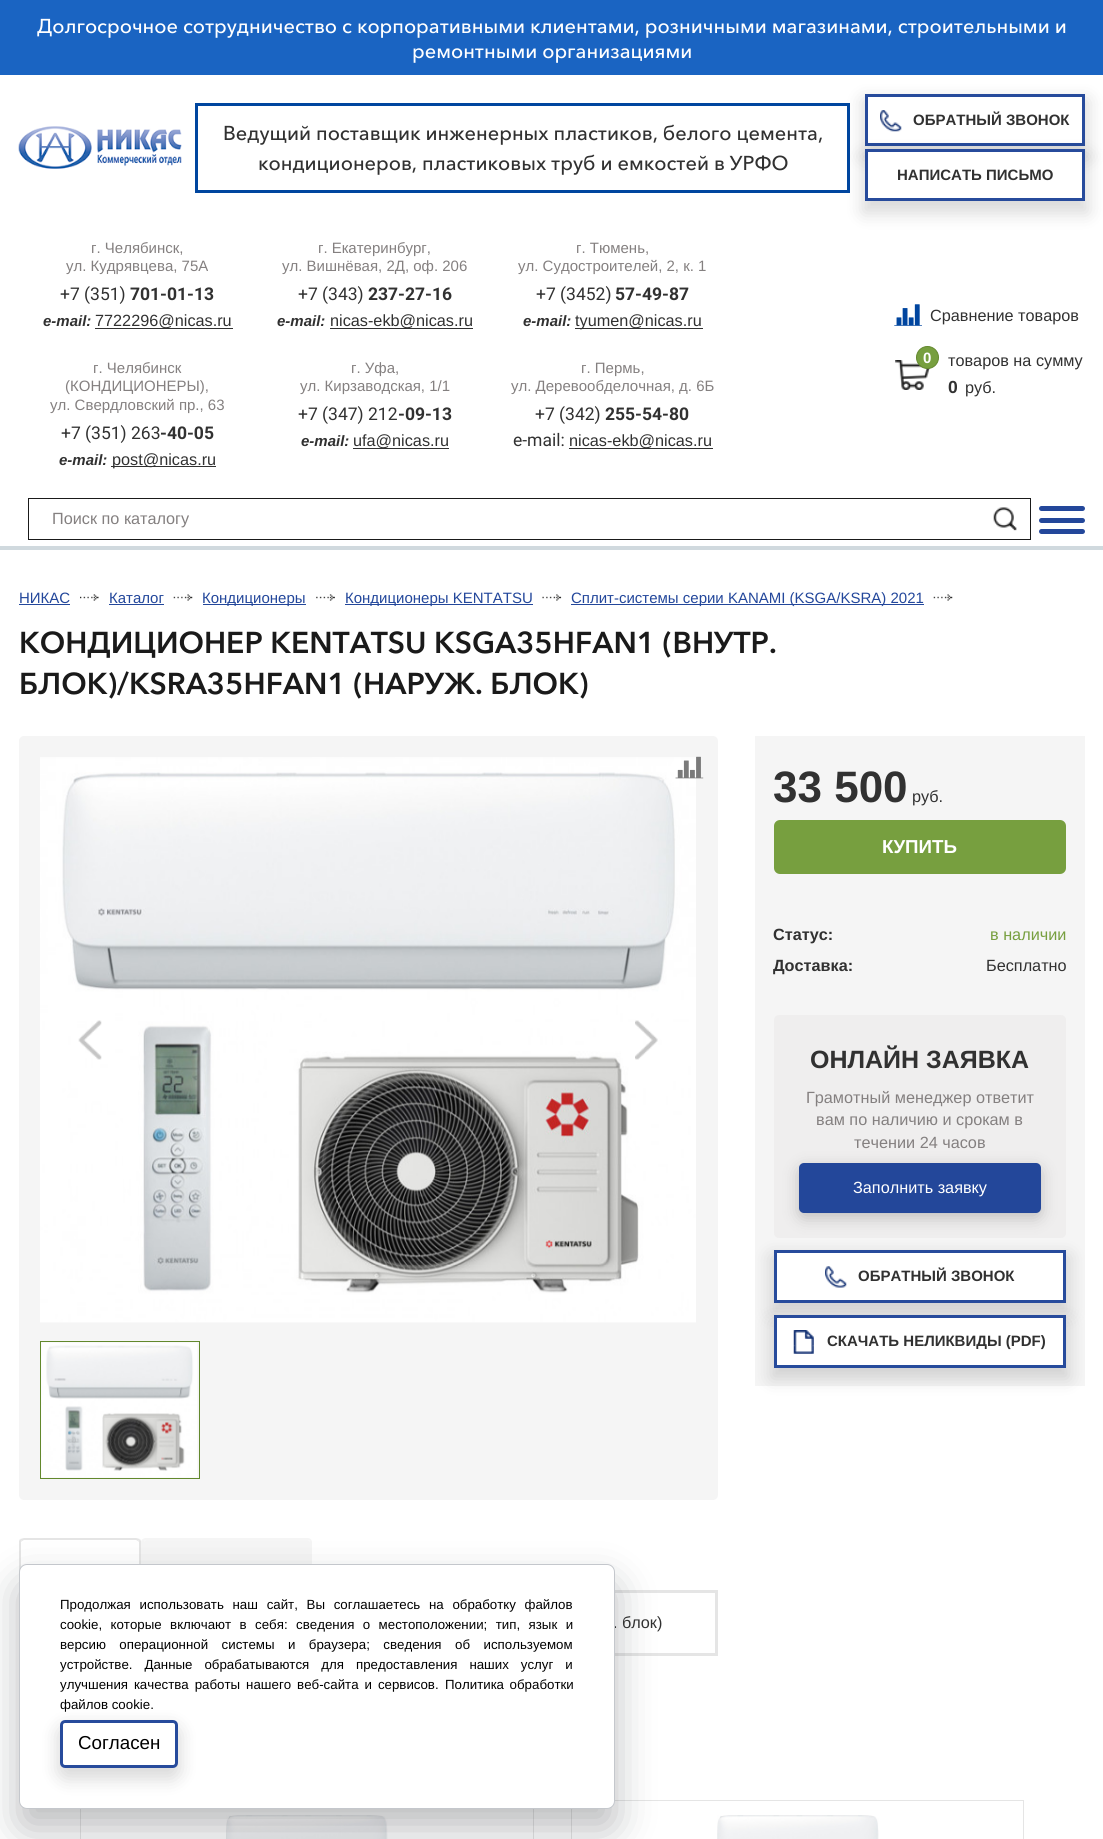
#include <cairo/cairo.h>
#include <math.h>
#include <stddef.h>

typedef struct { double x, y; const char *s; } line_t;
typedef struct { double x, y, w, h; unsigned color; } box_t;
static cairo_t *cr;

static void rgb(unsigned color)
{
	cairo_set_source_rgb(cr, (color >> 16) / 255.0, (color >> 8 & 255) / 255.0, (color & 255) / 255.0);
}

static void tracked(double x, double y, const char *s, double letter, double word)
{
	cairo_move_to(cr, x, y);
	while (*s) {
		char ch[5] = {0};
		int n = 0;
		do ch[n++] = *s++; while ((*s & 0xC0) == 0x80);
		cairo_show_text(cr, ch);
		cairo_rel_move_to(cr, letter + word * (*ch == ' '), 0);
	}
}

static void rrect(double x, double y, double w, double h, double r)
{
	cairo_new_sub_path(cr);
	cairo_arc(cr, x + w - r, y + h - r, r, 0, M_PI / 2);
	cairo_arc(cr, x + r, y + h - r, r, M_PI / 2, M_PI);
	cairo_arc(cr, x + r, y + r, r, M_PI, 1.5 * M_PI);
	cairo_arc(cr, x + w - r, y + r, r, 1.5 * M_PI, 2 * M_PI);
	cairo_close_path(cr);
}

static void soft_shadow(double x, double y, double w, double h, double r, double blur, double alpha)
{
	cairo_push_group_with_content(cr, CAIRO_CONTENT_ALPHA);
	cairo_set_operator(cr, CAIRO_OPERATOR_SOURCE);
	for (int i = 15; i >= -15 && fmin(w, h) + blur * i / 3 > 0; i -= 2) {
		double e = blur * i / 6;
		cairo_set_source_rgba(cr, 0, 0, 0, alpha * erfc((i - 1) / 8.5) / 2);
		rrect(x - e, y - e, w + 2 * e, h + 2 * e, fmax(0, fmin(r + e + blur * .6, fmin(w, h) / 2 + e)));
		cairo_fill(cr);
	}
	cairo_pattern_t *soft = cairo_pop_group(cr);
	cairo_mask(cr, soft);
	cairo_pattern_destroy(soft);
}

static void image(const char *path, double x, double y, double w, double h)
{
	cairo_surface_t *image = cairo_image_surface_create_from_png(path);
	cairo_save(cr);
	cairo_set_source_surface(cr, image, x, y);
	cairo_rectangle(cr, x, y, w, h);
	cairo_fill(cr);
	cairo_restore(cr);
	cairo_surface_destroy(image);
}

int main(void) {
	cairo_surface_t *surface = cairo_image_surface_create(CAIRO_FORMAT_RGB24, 1103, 1839);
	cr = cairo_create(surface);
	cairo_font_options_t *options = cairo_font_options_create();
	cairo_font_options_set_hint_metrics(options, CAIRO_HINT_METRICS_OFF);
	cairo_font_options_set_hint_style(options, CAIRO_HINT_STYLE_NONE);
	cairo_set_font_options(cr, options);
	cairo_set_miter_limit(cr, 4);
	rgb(0xffffff);
	cairo_paint(cr);
	rgb(0x1a64c2);
	cairo_rectangle(cr, 0, 0, 1103, 75);
	cairo_fill(cr);
	image("img/1.png", 18, 126, 164, 43);
	cairo_rectangle(cr, 196.5, 104.5, 652, 87);
	rgb(0x00469f);
	cairo_set_line_width(cr, 3);
	cairo_stroke(cr);
	cairo_save(cr);
	cairo_set_fill_rule(cr, CAIRO_FILL_RULE_EVEN_ODD);
	cairo_new_path(cr);
	cairo_move_to(cr, 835, 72);
	cairo_line_to(cr, 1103, 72);
	cairo_line_to(cr, 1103, 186);
	cairo_line_to(cr, 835, 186);
	cairo_close_path(cr);
	cairo_move_to(cr, 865, 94);
	cairo_line_to(cr, 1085, 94);
	cairo_line_to(cr, 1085, 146);
	cairo_line_to(cr, 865, 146);
	cairo_close_path(cr);
	cairo_clip(cr);
	rgb(0x000000);
	soft_shadow(863, 100, 225, 58, 0, 9, 0.15);
	cairo_restore(cr);
	cairo_rectangle(cr, 866.5, 95.5, 217, 49);
	rgb(0x274b9c);
	cairo_stroke(cr);
	image("img/2.png", 880, 110, 22, 22);
	rgb(0x000000);
	soft_shadow(863, 155, 225, 58, 0, 9, 0.15);
	rgb(0xffffff);
	cairo_rectangle(cr, 866.5, 150.5, 217, 49);
	cairo_fill_preserve(cr);
	rgb(0x274b9c);
	cairo_stroke(cr);
	{
		static const box_t items[] = {
			{95, 328, 138, 1, 0x313131},
			{330, 328, 143, 1, 0x313131},
			{575, 328, 128, 1, 0x313131},
			{111, 466, 105, 1, 0x313131},
			{353, 448, 96, 1, 0x313131},
			{569, 448, 144, 1, 0x313131},
		};
		for (size_t i = 0; i < sizeof items / sizeof *items; i++) {
			rgb(items[i].color);
			cairo_rectangle(cr, items[i].x, items[i].y, items[i].w, items[i].h);
			cairo_fill(cr);
		}
	}
	image("img/3.png", 894, 304, 28, 22);
	image("img/4.png", 895, 360, 35, 30);
	rgb(0x779f3f);
	cairo_arc(cr, 927.5, 357.5, 11, 0, 2 * M_PI);
	cairo_fill_preserve(cr);
	rgb(0x62882c);
	cairo_set_line_width(cr, 1);
	cairo_stroke(cr);
	rgb(0xd0d9de);
	cairo_rectangle(cr, 0, 546, 1103, 4);
	cairo_fill(cr);
	cairo_rectangle(cr, 28.5, 498.5, 1002, 41);
	rgb(0x1a1a1a);
	cairo_stroke(cr);
	image("img/5.png", 993, 507, 24, 24);
	rgb(0x23479a);
	rrect(1039, 518, 46, 5, 2.5);
	cairo_fill(cr);
	rrect(1039, 506, 46, 5, 2.5);
	cairo_fill(cr);
	rrect(1039, 529, 46, 5, 2.5);
	cairo_fill(cr);
	rgb(0x23479b);
	cairo_rectangle(cr, 19, 604, 51, 1);
	cairo_fill(cr);
	image("img/6.png", 80, 594, 19, 7);
	cairo_rectangle(cr, 109, 604, 55, 1);
	cairo_fill(cr);
	image("img/7.png", 173, 594, 20, 7);
	cairo_rectangle(cr, 203, 604, 103, 1);
	cairo_fill(cr);
	image("img/8.png", 316, 594, 19, 7);
	cairo_rectangle(cr, 345, 604, 188, 1);
	cairo_fill(cr);
	image("img/9.png", 542, 594, 20, 7);
	cairo_rectangle(cr, 571, 604, 353, 1);
	cairo_fill(cr);
	image("img/10.png", 933, 594, 20, 7);
	rgb(0xf5f5f5);
	cairo_rectangle(cr, 755, 736, 330, 650);
	cairo_fill(cr);
	rgb(0x779f3f);
	rrect(774, 820, 292, 54, 6);
	cairo_fill(cr);
	rgb(0xefeeee);
	rrect(774, 1015, 292, 223, 5);
	cairo_fill(cr);
	rgb(0x000000);
	soft_shadow(799, 1168, 242, 50, 5, 8, 0.2);
	rgb(0x23479a);
	rrect(799, 1163, 242, 50, 5);
	cairo_fill(cr);
	rgb(0x000000);
	soft_shadow(771, 1256, 298, 58, 0, 9, 0.15);
	rgb(0xffffff);
	cairo_rectangle(cr, 775.5, 1251.5, 289, 50);
	cairo_fill_preserve(cr);
	rgb(0x274b9c);
	cairo_set_line_width(cr, 3);
	cairo_stroke(cr);
	image("img/11.png", 825, 1266, 22, 22);
	rgb(0x000000);
	soft_shadow(771, 1321, 298, 58, 0, 9, 0.15);
	rgb(0xffffff);
	cairo_rectangle(cr, 775.5, 1316.5, 289, 50);
	cairo_fill_preserve(cr);
	rgb(0x274b9c);
	cairo_stroke(cr);
	image("img/12.png", 793, 1330, 21, 24);
	rgb(0xf5f5f5);
	rrect(19, 736, 699, 764, 5);
	cairo_fill(cr);
	image("img/14.png", 40, 757, 656, 566);
	image("img/13.png", 675, 756, 29, 23);
	image("img/15.png", 78, 1020, 24, 40);
	image("img/16.png", 635, 1020, 23, 40);
	cairo_rectangle(cr, 40.5, 1341.5, 159, 137);
	rgb(0x62882c);
	cairo_set_line_width(cr, 1);
	cairo_stroke(cr);
	image("img/17.png", 41, 1342, 157, 136);
	cairo_rectangle(cr, 20.5, 1591.5, 696, 63);
	rgb(0xe5e5e5);
	cairo_set_line_width(cr, 3);
	cairo_stroke(cr);
	rgb(0xffffff);
	cairo_new_path(cr);
	cairo_move_to(cr, 24, 1538);
	cairo_line_to(cr, 136, 1538);
	cairo_curve_to(cr, 139, 1538, 141, 1540, 141, 1543);
	cairo_line_to(cr, 141, 1593);
	cairo_line_to(cr, 19, 1593);
	cairo_line_to(cr, 19, 1543);
	cairo_curve_to(cr, 19, 1540, 21, 1538, 24, 1538);
	cairo_close_path(cr);
	cairo_fill(cr);
	rgb(0xe5e5e5);
	cairo_new_path(cr);
	cairo_move_to(cr, 24, 1538);
	cairo_line_to(cr, 20, 1539);
	cairo_line_to(cr, 22, 1541);
	cairo_line_to(cr, 24, 1540);
	cairo_line_to(cr, 136, 1540);
	cairo_line_to(cr, 138, 1541);
	cairo_line_to(cr, 140, 1539);
	cairo_line_to(cr, 136, 1538);
	cairo_close_path(cr);
	cairo_fill(cr);
	cairo_new_path(cr);
	cairo_move_to(cr, 139, 1590);
	cairo_line_to(cr, 141, 1592);
	cairo_line_to(cr, 141, 1541);
	cairo_line_to(cr, 140, 1539);
	cairo_line_to(cr, 138, 1541);
	cairo_line_to(cr, 139, 1542);
	cairo_close_path(cr);
	cairo_fill(cr);
	cairo_new_path(cr);
	cairo_move_to(cr, 20, 1539);
	cairo_line_to(cr, 19, 1541);
	cairo_line_to(cr, 19, 1592);
	cairo_line_to(cr, 21, 1590);
	cairo_line_to(cr, 21, 1542);
	cairo_line_to(cr, 22, 1541);
	cairo_close_path(cr);
	cairo_fill(cr);
	rgb(0xf5f5f5);
	cairo_new_path(cr);
	cairo_move_to(cr, 146.5, 1540);
	cairo_line_to(cr, 307.5, 1540);
	cairo_curve_to(cr, 309, 1540, 310, 1541, 310, 1542.5);
	cairo_line_to(cr, 310, 1590);
	cairo_line_to(cr, 144, 1590);
	cairo_line_to(cr, 144, 1542.5);
	cairo_curve_to(cr, 144, 1541, 145, 1540, 146.5, 1540);
	cairo_close_path(cr);
	cairo_fill(cr);
	cairo_set_fill_rule(cr, CAIRO_FILL_RULE_EVEN_ODD);
	cairo_new_path(cr);
	cairo_move_to(cr, 146, 1538);
	cairo_line_to(cr, 308, 1538);
	cairo_curve_to(cr, 310, 1538, 312, 1540, 312, 1542);
	cairo_line_to(cr, 312, 1590);
	cairo_line_to(cr, 141, 1590);
	cairo_line_to(cr, 141, 1542);
	cairo_curve_to(cr, 141, 1540, 143, 1538, 146, 1538);
	cairo_close_path(cr);
	cairo_move_to(cr, 146, 1540);
	cairo_line_to(cr, 308, 1540);
	cairo_curve_to(cr, 309, 1540, 310, 1541, 310, 1542);
	cairo_line_to(cr, 310, 1590);
	cairo_line_to(cr, 144, 1590);
	cairo_line_to(cr, 144, 1542);
	cairo_curve_to(cr, 144, 1541, 145, 1540, 146, 1540);
	cairo_close_path(cr);
	cairo_fill(cr);
	cairo_rectangle(cr, 80.5, 1800.5, 453, 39);
	rgb(0xe5e5e5);
	cairo_set_line_width(cr, 1);
	cairo_stroke(cr);
	image("img/18.png", 226, 1815, 162, 24);
	cairo_rectangle(cr, 571.5, 1800.5, 452, 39);
	cairo_stroke(cr);
	image("img/19.png", 717, 1815, 162, 24);
	rgb(0x1f2229);
	soft_shadow(19, 1584, 596, 245, 8, 20, 0.3);
	cairo_select_font_face(cr, "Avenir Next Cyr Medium", CAIRO_FONT_SLANT_NORMAL, CAIRO_FONT_WEIGHT_NORMAL);
	cairo_set_font_size(cr, 20);
	rgb(0xffffff);
	cairo_move_to(cr, 37, 33);
	cairo_show_text(cr, "Долгосрочное сотрудничество с корпоративными клиентами, розничными магазинами, строительными и");
	cairo_move_to(cr, 412, 58);
	cairo_show_text(cr, "ремонтными организациями");
	rgb(0x313131);
	cairo_move_to(cr, 223, 140);
	cairo_show_text(cr, "Ведущий поставщик инженерных пластиков, белого цемента,");
	cairo_move_to(cr, 258, 170);
	cairo_show_text(cr, "кондиционеров, пластиковых труб и емкостей в УРФО");
	cairo_select_font_face(cr, "Liberation Sans", CAIRO_FONT_SLANT_NORMAL, CAIRO_FONT_WEIGHT_BOLD);
	cairo_set_font_size(cr, 15);
	cairo_move_to(cr, 913, 125);
	cairo_show_text(cr, "ОБРАТНЫЙ ЗВОНОК");
	cairo_move_to(cr, 897, 180);
	cairo_show_text(cr, "НАПИСАТЬ ПИСЬМО");
	cairo_select_font_face(cr, "Liberation Sans", CAIRO_FONT_SLANT_NORMAL, CAIRO_FONT_WEIGHT_NORMAL);
	rgb(0x848080);
	cairo_move_to(cr, 91, 253);
	cairo_show_text(cr, "г. Челябинск,");
	cairo_move_to(cr, 66, 271);
	cairo_show_text(cr, "ул. Кудрявцева, 75А");
	cairo_select_font_face(cr, "Roboto", CAIRO_FONT_SLANT_NORMAL, CAIRO_FONT_WEIGHT_NORMAL);
	cairo_set_font_size(cr, 17.5);
	rgb(0x313131);
	cairo_move_to(cr, 60, 300);
	cairo_show_text(cr, "+7 (351)");
	cairo_select_font_face(cr, "Roboto", CAIRO_FONT_SLANT_NORMAL, CAIRO_FONT_WEIGHT_BOLD);
	cairo_move_to(cr, 130, 300);
	cairo_show_text(cr, "701-01-13");
	cairo_select_font_face(cr, "Liberation Sans", CAIRO_FONT_SLANT_ITALIC, CAIRO_FONT_WEIGHT_BOLD);
	cairo_set_font_size(cr, 15);
	cairo_move_to(cr, 43, 326);
	cairo_show_text(cr, "e-mail:");
	cairo_select_font_face(cr, "Liberation Sans", CAIRO_FONT_SLANT_NORMAL, CAIRO_FONT_WEIGHT_NORMAL);
	cairo_set_font_size(cr, 16.25);
	cairo_move_to(cr, 95, 326);
	cairo_show_text(cr, "7722296@nicas.ru");
	cairo_set_font_size(cr, 15);
	rgb(0x848080);
	cairo_move_to(cr, 318, 253);
	cairo_show_text(cr, "г. Екатеринбург,");
	cairo_move_to(cr, 282, 271);
	cairo_show_text(cr, "ул. Вишнёвая, 2Д, оф. 206");
	cairo_select_font_face(cr, "Roboto", CAIRO_FONT_SLANT_NORMAL, CAIRO_FONT_WEIGHT_NORMAL);
	cairo_set_font_size(cr, 17.5);
	rgb(0x313131);
	cairo_move_to(cr, 298, 300);
	cairo_show_text(cr, "+7 (343)");
	cairo_select_font_face(cr, "Roboto", CAIRO_FONT_SLANT_NORMAL, CAIRO_FONT_WEIGHT_BOLD);
	cairo_move_to(cr, 368, 300);
	cairo_show_text(cr, "237-27-16");
	cairo_select_font_face(cr, "Liberation Sans", CAIRO_FONT_SLANT_ITALIC, CAIRO_FONT_WEIGHT_BOLD);
	cairo_set_font_size(cr, 15);
	cairo_move_to(cr, 277, 326);
	cairo_show_text(cr, "e-mail:");
	cairo_select_font_face(cr, "Liberation Sans", CAIRO_FONT_SLANT_NORMAL, CAIRO_FONT_WEIGHT_NORMAL);
	cairo_set_font_size(cr, 16.25);
	cairo_move_to(cr, 330, 326);
	cairo_show_text(cr, "nicas-ekb@nicas.ru");
	cairo_set_font_size(cr, 15);
	rgb(0x848080);
	cairo_move_to(cr, 576, 253);
	cairo_show_text(cr, "г. Тюмень,");
	cairo_move_to(cr, 518, 271);
	cairo_show_text(cr, "ул. Судостроителей, 2, к. 1");
	cairo_select_font_face(cr, "Roboto", CAIRO_FONT_SLANT_NORMAL, CAIRO_FONT_WEIGHT_NORMAL);
	cairo_set_font_size(cr, 17.5);
	rgb(0x313131);
	cairo_move_to(cr, 536, 300);
	cairo_show_text(cr, "+7 (3452)");
	cairo_select_font_face(cr, "Roboto", CAIRO_FONT_SLANT_NORMAL, CAIRO_FONT_WEIGHT_BOLD);
	cairo_move_to(cr, 615, 300);
	cairo_show_text(cr, "57-49-87");
	cairo_select_font_face(cr, "Liberation Sans", CAIRO_FONT_SLANT_ITALIC, CAIRO_FONT_WEIGHT_BOLD);
	cairo_set_font_size(cr, 15);
	cairo_move_to(cr, 523, 326);
	cairo_show_text(cr, "e-mail:");
	cairo_select_font_face(cr, "Liberation Sans", CAIRO_FONT_SLANT_NORMAL, CAIRO_FONT_WEIGHT_NORMAL);
	cairo_set_font_size(cr, 16.25);
	cairo_move_to(cr, 575, 326);
	cairo_show_text(cr, "tyumen@nicas.ru");
	cairo_set_font_size(cr, 15);
	rgb(0x848080);
	{
		static const line_t items[] = {
			{93, 373, "г. Челябинск"},
			{65, 391, "(КОНДИЦИОНЕРЫ),"},
			{50, 410, "ул. Свердловский пр., 63"},
		};
		for (size_t i = 0; i < sizeof items / sizeof *items; i++) {
			cairo_move_to(cr, items[i].x, items[i].y);
			cairo_show_text(cr, items[i].s);
		}
	}
	cairo_select_font_face(cr, "Roboto", CAIRO_FONT_SLANT_NORMAL, CAIRO_FONT_WEIGHT_NORMAL);
	cairo_set_font_size(cr, 17.5);
	rgb(0x313131);
	cairo_move_to(cr, 61, 439);
	cairo_show_text(cr, "+7 (351) 263");
	cairo_select_font_face(cr, "Roboto", CAIRO_FONT_SLANT_NORMAL, CAIRO_FONT_WEIGHT_BOLD);
	cairo_move_to(cr, 160, 439);
	cairo_show_text(cr, "-40-05");
	cairo_select_font_face(cr, "Liberation Sans", CAIRO_FONT_SLANT_ITALIC, CAIRO_FONT_WEIGHT_BOLD);
	cairo_set_font_size(cr, 15);
	cairo_move_to(cr, 59, 465);
	cairo_show_text(cr, "e-mail:");
	cairo_select_font_face(cr, "Liberation Sans", CAIRO_FONT_SLANT_NORMAL, CAIRO_FONT_WEIGHT_NORMAL);
	cairo_set_font_size(cr, 16.25);
	cairo_move_to(cr, 112, 465);
	cairo_show_text(cr, "post@nicas.ru");
	cairo_set_font_size(cr, 15);
	rgb(0x848080);
	cairo_move_to(cr, 351, 373);
	cairo_show_text(cr, "г. Уфа,");
	cairo_move_to(cr, 300, 391);
	cairo_show_text(cr, "ул. Кирзаводская, 1/1");
	cairo_select_font_face(cr, "Roboto", CAIRO_FONT_SLANT_NORMAL, CAIRO_FONT_WEIGHT_NORMAL);
	cairo_set_font_size(cr, 17.5);
	rgb(0x313131);
	cairo_move_to(cr, 298, 420);
	cairo_show_text(cr, "+7 (347) 212");
	cairo_select_font_face(cr, "Roboto", CAIRO_FONT_SLANT_NORMAL, CAIRO_FONT_WEIGHT_BOLD);
	cairo_move_to(cr, 398, 420);
	cairo_show_text(cr, "-09-13");
	cairo_select_font_face(cr, "Liberation Sans", CAIRO_FONT_SLANT_ITALIC, CAIRO_FONT_WEIGHT_BOLD);
	cairo_set_font_size(cr, 15);
	cairo_move_to(cr, 301, 446);
	cairo_show_text(cr, "e-mail:");
	cairo_select_font_face(cr, "Liberation Sans", CAIRO_FONT_SLANT_NORMAL, CAIRO_FONT_WEIGHT_NORMAL);
	cairo_set_font_size(cr, 16.25);
	cairo_move_to(cr, 353, 446);
	cairo_show_text(cr, "ufa@nicas.ru");
	cairo_set_font_size(cr, 15);
	rgb(0x848080);
	cairo_move_to(cr, 581, 373);
	cairo_show_text(cr, "г. Пермь,");
	cairo_move_to(cr, 511, 391);
	cairo_show_text(cr, "ул. Деревообделочная, д. 6Б");
	cairo_select_font_face(cr, "Roboto", CAIRO_FONT_SLANT_NORMAL, CAIRO_FONT_WEIGHT_NORMAL);
	cairo_set_font_size(cr, 17.5);
	rgb(0x313131);
	cairo_move_to(cr, 535, 420);
	cairo_show_text(cr, "+7 (342)");
	cairo_select_font_face(cr, "Roboto", CAIRO_FONT_SLANT_NORMAL, CAIRO_FONT_WEIGHT_BOLD);
	cairo_move_to(cr, 605, 420);
	cairo_show_text(cr, "255-54-80");
	cairo_select_font_face(cr, "Roboto", CAIRO_FONT_SLANT_NORMAL, CAIRO_FONT_WEIGHT_NORMAL);
	cairo_move_to(cr, 513, 446);
	cairo_show_text(cr, "e-mail:");
	cairo_select_font_face(cr, "Liberation Sans", CAIRO_FONT_SLANT_NORMAL, CAIRO_FONT_WEIGHT_NORMAL);
	cairo_set_font_size(cr, 16.25);
	cairo_move_to(cr, 569, 446);
	cairo_show_text(cr, "nicas-ekb@nicas.ru");
	cairo_move_to(cr, 930, 321);
	cairo_show_text(cr, "Сравнение товаров");
	cairo_select_font_face(cr, "Liberation Sans", CAIRO_FONT_SLANT_NORMAL, CAIRO_FONT_WEIGHT_BOLD);
	cairo_set_font_size(cr, 15);
	rgb(0xffffff);
	cairo_move_to(cr, 923, 363);
	cairo_show_text(cr, "0");
	cairo_select_font_face(cr, "Liberation Sans", CAIRO_FONT_SLANT_NORMAL, CAIRO_FONT_WEIGHT_NORMAL);
	cairo_set_font_size(cr, 16.25);
	rgb(0x313131);
	cairo_move_to(cr, 948, 366);
	cairo_show_text(cr, "товаров на сумму");
	cairo_select_font_face(cr, "Liberation Sans", CAIRO_FONT_SLANT_NORMAL, CAIRO_FONT_WEIGHT_BOLD);
	cairo_set_font_size(cr, 17.5);
	cairo_move_to(cr, 948, 393);
	cairo_show_text(cr, "0");
	cairo_select_font_face(cr, "Liberation Sans", CAIRO_FONT_SLANT_NORMAL, CAIRO_FONT_WEIGHT_NORMAL);
	cairo_set_font_size(cr, 16.25);
	cairo_move_to(cr, 965, 393);
	cairo_show_text(cr, "руб.");
	rgb(0x848080);
	cairo_move_to(cr, 52, 524);
	cairo_show_text(cr, "Поиск по каталогу");
	cairo_set_font_size(cr, 15);
	rgb(0x23479b);
	{
		static const line_t items[] = {
			{19, 603, "НИКАС"},
			{109, 603, "Каталог"},
			{202, 603, "Кондиционеры"},
			{345, 603, "Кондиционеры KENTATSU"},
			{571, 603, "Сплит-системы серии KANAMI (KSGA/KSRA) 2021"},
		};
		for (size_t i = 0; i < sizeof items / sizeof *items; i++) {
			cairo_move_to(cr, items[i].x, items[i].y);
			cairo_show_text(cr, items[i].s);
		}
	}
	cairo_select_font_face(cr, "Avenir Next Cyr", CAIRO_FONT_SLANT_NORMAL, CAIRO_FONT_WEIGHT_BOLD);
	cairo_set_font_size(cr, 30);
	rgb(0x1a1a1a);
	cairo_move_to(cr, 19, 653);
	cairo_show_text(cr, "КОНДИЦИОНЕР KENTATSU KSGA35HFAN1 (ВНУТР.");
	cairo_move_to(cr, 19, 694);
	cairo_show_text(cr, "БЛОК)/KSRA35HFAN1 (НАРУЖ. БЛОК)");
	cairo_select_font_face(cr, "Liberation Sans", CAIRO_FONT_SLANT_NORMAL, CAIRO_FONT_WEIGHT_BOLD);
	cairo_set_font_size(cr, 44);
	rgb(0x313131);
	cairo_move_to(cr, 773, 802);
	cairo_show_text(cr, "33 500");
	cairo_select_font_face(cr, "Liberation Sans", CAIRO_FONT_SLANT_NORMAL, CAIRO_FONT_WEIGHT_NORMAL);
	cairo_set_font_size(cr, 16.25);
	cairo_move_to(cr, 912, 802);
	cairo_show_text(cr, "руб.");
	cairo_select_font_face(cr, "Liberation Sans", CAIRO_FONT_SLANT_NORMAL, CAIRO_FONT_WEIGHT_BOLD);
	cairo_set_font_size(cr, 18.75);
	rgb(0xffffff);
	cairo_move_to(cr, 882, 853);
	cairo_show_text(cr, "КУПИТЬ");
	cairo_set_font_size(cr, 16.25);
	rgb(0x313131);
	cairo_move_to(cr, 773, 940);
	cairo_show_text(cr, "Статус:");
	cairo_select_font_face(cr, "Liberation Sans", CAIRO_FONT_SLANT_NORMAL, CAIRO_FONT_WEIGHT_NORMAL);
	rgb(0x779f3f);
	cairo_move_to(cr, 990, 940);
	cairo_show_text(cr, "в наличии");
	cairo_select_font_face(cr, "Liberation Sans", CAIRO_FONT_SLANT_NORMAL, CAIRO_FONT_WEIGHT_BOLD);
	rgb(0x313131);
	cairo_move_to(cr, 773, 971);
	cairo_show_text(cr, "Доставка:");
	cairo_select_font_face(cr, "Liberation Sans", CAIRO_FONT_SLANT_NORMAL, CAIRO_FONT_WEIGHT_NORMAL);
	cairo_move_to(cr, 986, 971);
	cairo_show_text(cr, "Бесплатно");
	cairo_select_font_face(cr, "Liberation Sans", CAIRO_FONT_SLANT_NORMAL, CAIRO_FONT_WEIGHT_BOLD);
	cairo_set_font_size(cr, 25);
	cairo_move_to(cr, 810, 1068);
	cairo_show_text(cr, "ОНЛАЙН ЗАЯВКА");
	cairo_select_font_face(cr, "Liberation Sans", CAIRO_FONT_SLANT_NORMAL, CAIRO_FONT_WEIGHT_NORMAL);
	cairo_set_font_size(cr, 16.25);
	rgb(0x848080);
	{
		static const line_t items[] = {
			{806, 1103, "Грамотный менеджер ответит"},
			{816, 1125, "вам по наличию и срокам в"},
			{854, 1148, "течении 24 часов"},
		};
		for (size_t i = 0; i < sizeof items / sizeof *items; i++) {
			cairo_move_to(cr, items[i].x, items[i].y);
			cairo_show_text(cr, items[i].s);
		}
	}
	rgb(0xffffff);
	cairo_move_to(cr, 853, 1193);
	cairo_show_text(cr, "Заполнить заявку");
	cairo_select_font_face(cr, "Liberation Sans", CAIRO_FONT_SLANT_NORMAL, CAIRO_FONT_WEIGHT_BOLD);
	cairo_set_font_size(cr, 15);
	rgb(0x313131);
	cairo_move_to(cr, 858, 1281);
	cairo_show_text(cr, "ОБРАТНЫЙ ЗВОНОК");
	cairo_move_to(cr, 827, 1346);
	cairo_show_text(cr, "СКАЧАТЬ НЕЛИКВИДЫ (PDF)");
	cairo_select_font_face(cr, "Liberation Sans", CAIRO_FONT_SLANT_NORMAL, CAIRO_FONT_WEIGHT_NORMAL);
	cairo_set_font_size(cr, 16.25);
	cairo_move_to(cr, 613, 1628);
	cairo_show_text(cr, ". блок)");
	rgb(0xffffff);
	rrect(19.5, 1564.5, 595, 244, 7.5);
	cairo_fill_preserve(cr);
	rgb(0xc4c7cc);
	cairo_stroke(cr);
	cairo_set_font_size(cr, 13.3);
	rgb(0x000000);
	tracked(60, 1609, "Продолжая использовать наш сайт, Вы соглашаетесь на обработку файлов", 0, 5);
	tracked(60, 1629, "cookie, которые включают в себя: сведения о местоположении; тип, язык и", 0, 4.75);
	tracked(60, 1649, "версию операционной системы и браузера; сведения об используемом", 0, 9.75);
	tracked(60, 1669, "устройстве. Данные обрабатываются для предоставления наших услуг и", 0, 8.25);
	tracked(60, 1689, "улучшения качества работы нашего веб-сайта и сервисов.", 0, 2.25);
	tracked(445, 1689, "Политика обработки", 0, 2);
	cairo_move_to(cr, 60, 1709);
	cairo_show_text(cr, "файлов cookie.");
	rgb(0x000000);
	soft_shadow(58, 1726, 122, 53, 8, 9, 0.15);
	rgb(0xffffff);
	rrect(61.5, 1721.5, 115, 45, 3.5);
	cairo_fill_preserve(cr);
	rgb(0x274b9c);
	cairo_set_line_width(cr, 3);
	cairo_stroke(cr);
	cairo_set_font_size(cr, 18.75);
	rgb(0x000000);
	cairo_move_to(cr, 78, 1749);
	cairo_show_text(cr, "Согласен");
	cairo_surface_write_to_png(surface, "page.png");
	cairo_font_options_destroy(options);
	cairo_destroy(cr);
	cairo_surface_destroy(surface);
	return 0;
}
